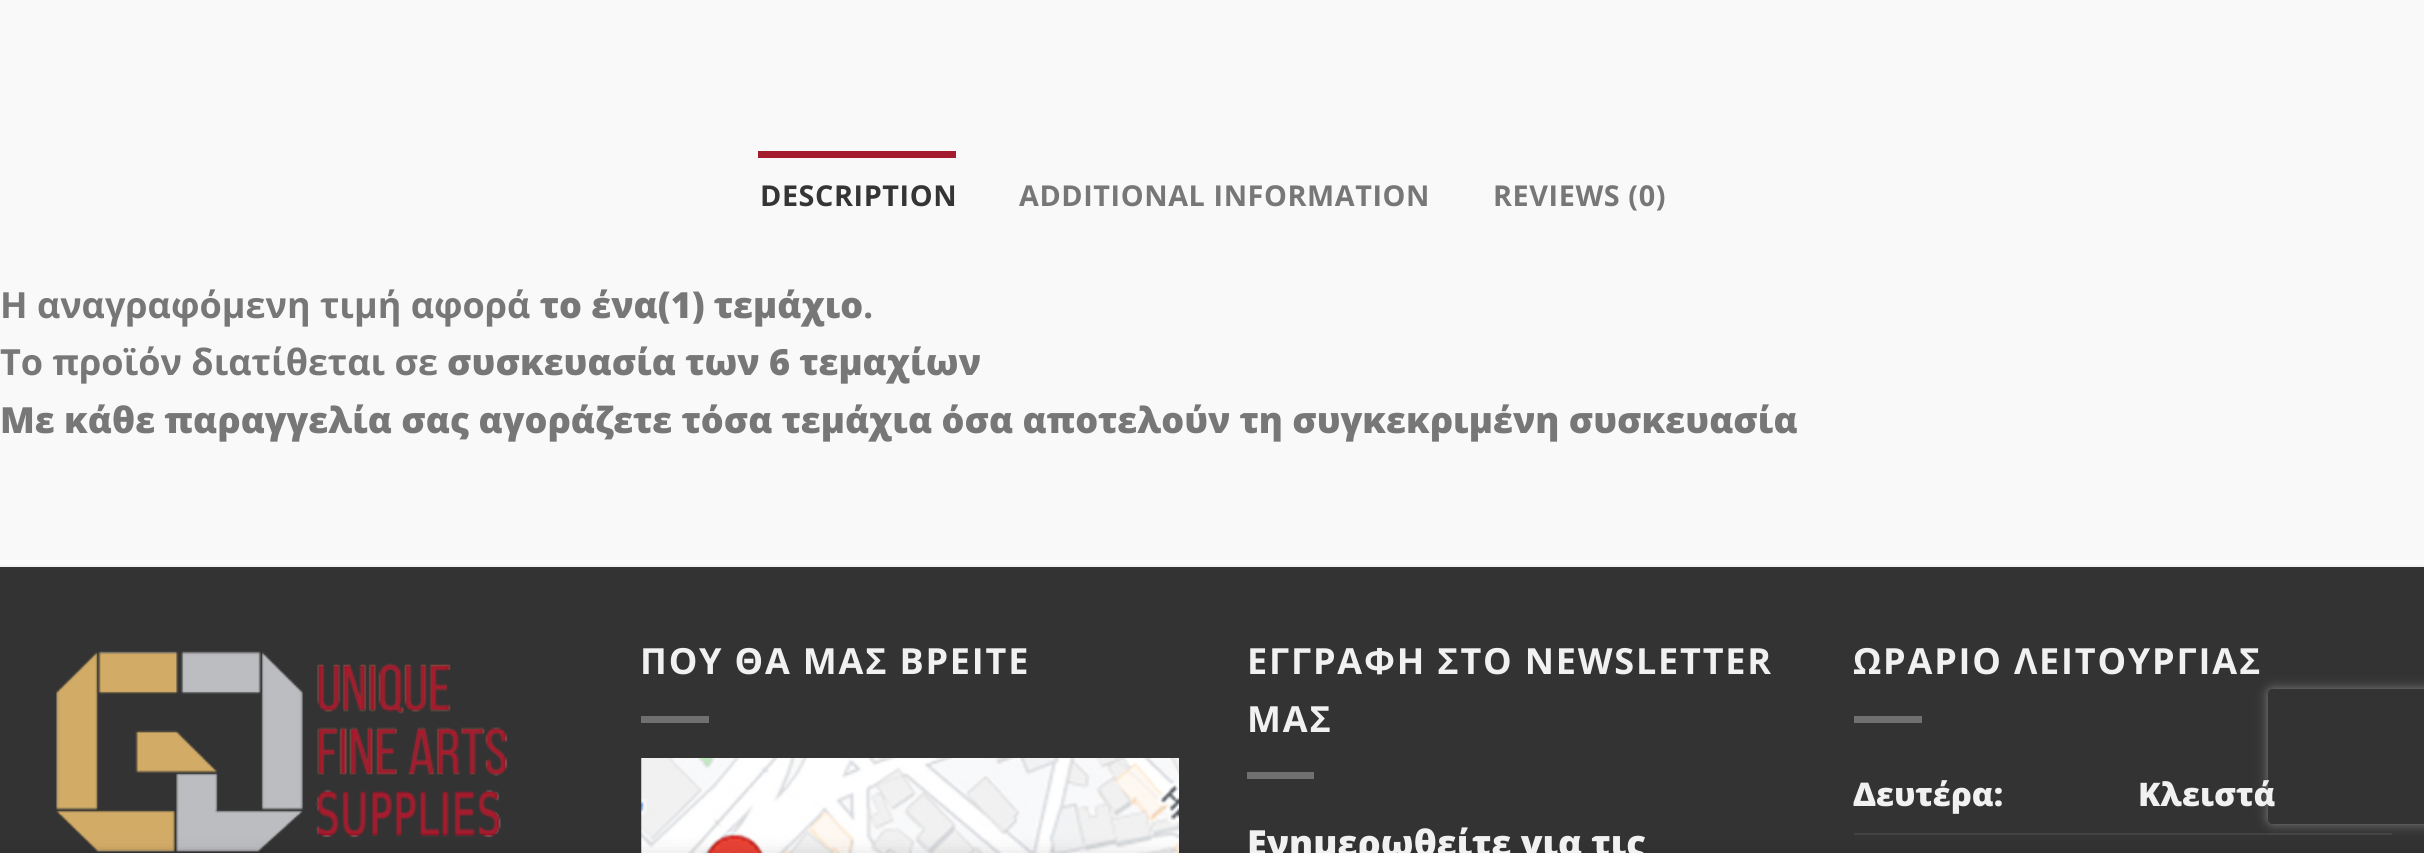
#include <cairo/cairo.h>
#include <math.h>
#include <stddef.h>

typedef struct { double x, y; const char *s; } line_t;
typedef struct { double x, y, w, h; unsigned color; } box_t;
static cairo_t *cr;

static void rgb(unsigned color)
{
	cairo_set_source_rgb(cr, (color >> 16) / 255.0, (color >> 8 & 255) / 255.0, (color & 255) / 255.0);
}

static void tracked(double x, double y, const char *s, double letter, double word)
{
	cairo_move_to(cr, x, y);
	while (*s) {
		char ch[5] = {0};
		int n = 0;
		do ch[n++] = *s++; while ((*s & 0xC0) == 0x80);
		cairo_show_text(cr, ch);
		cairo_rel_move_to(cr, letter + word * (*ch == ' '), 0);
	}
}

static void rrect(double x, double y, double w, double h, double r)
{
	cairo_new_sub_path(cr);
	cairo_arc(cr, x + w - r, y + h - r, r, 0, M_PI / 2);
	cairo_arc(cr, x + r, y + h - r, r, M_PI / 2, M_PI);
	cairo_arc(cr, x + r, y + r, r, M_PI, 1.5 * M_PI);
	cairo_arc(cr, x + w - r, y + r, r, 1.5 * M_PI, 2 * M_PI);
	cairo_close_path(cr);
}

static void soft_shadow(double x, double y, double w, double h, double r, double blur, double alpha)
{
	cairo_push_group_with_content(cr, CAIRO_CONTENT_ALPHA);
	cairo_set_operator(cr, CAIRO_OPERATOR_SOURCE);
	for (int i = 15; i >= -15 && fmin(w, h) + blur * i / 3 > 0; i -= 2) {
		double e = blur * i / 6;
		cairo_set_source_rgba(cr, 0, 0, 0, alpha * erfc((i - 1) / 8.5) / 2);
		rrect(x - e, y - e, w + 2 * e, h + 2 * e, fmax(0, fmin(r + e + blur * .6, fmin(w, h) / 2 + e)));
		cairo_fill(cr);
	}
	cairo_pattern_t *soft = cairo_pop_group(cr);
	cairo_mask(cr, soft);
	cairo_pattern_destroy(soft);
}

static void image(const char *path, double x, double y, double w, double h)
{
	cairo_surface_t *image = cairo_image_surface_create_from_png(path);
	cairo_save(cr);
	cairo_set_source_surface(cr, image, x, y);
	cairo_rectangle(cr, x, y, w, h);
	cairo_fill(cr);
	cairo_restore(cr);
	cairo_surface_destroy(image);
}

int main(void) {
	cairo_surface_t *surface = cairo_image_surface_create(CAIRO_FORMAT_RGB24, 2424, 853);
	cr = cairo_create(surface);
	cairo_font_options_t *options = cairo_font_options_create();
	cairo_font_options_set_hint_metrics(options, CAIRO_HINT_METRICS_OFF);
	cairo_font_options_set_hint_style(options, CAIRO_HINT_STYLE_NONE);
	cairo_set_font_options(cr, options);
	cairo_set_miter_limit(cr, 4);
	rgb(0xf9f9f9);
	cairo_paint(cr);
	{
		static const box_t items[] = {
			{758, 151, 198, 7, 0xa41d2e},
			{0, 567, 2424, 286, 0x333333},
			{0, 565, 2424, 2, 0xf1f1f1},
		};
		for (size_t i = 0; i < sizeof items / sizeof *items; i++) {
			rgb(items[i].color);
			cairo_rectangle(cr, items[i].x, items[i].y, items[i].w, items[i].h);
			cairo_fill(cr);
		}
	}
	image("img/1.png", 56, 651, 452, 201);
	rgb(0x707070);
	cairo_rectangle(cr, 641, 716, 68, 7);
	cairo_fill(cr);
	image("img/2.png", 641, 758, 538, 95);
	{
		static const box_t items[] = {
			{1247, 772, 67, 7, 0x707070},
			{1854, 716, 68, 7, 0x707070},
			{1854, 833, 538, 2, 0x434343},
		};
		for (size_t i = 0; i < sizeof items / sizeof *items; i++) {
			rgb(items[i].color);
			cairo_rectangle(cr, items[i].x, items[i].y, items[i].w, items[i].h);
			cairo_fill(cr);
		}
	}
	cairo_save(cr);
	cairo_set_fill_rule(cr, CAIRO_FILL_RULE_EVEN_ODD);
	cairo_new_path(cr);
	cairo_move_to(cr, 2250, 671);
	cairo_line_to(cr, 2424, 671);
	cairo_line_to(cr, 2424, 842);
	cairo_line_to(cr, 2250, 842);
	cairo_close_path(cr);
	cairo_move_to(cr, 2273, 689);
	cairo_line_to(cr, 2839, 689);
	cairo_curve_to(cr, 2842, 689, 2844, 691, 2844, 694);
	cairo_line_to(cr, 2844, 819);
	cairo_curve_to(cr, 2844, 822, 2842, 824, 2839, 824);
	cairo_line_to(cr, 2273, 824);
	cairo_curve_to(cr, 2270, 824, 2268, 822, 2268, 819);
	cairo_line_to(cr, 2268, 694);
	cairo_curve_to(cr, 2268, 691, 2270, 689, 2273, 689);
	cairo_close_path(cr);
	cairo_clip(cr);
	rgb(0x808080);
	soft_shadow(2268, 689, 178, 135, 5, 5.5, 1);
	cairo_restore(cr);
	rgb(0x000000);
	soft_shadow(0, 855, 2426, 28, 0, 10, 0.14);
	cairo_select_font_face(cr, "Open Sans", CAIRO_FONT_SLANT_NORMAL, CAIRO_FONT_WEIGHT_BOLD);
	cairo_set_font_size(cr, 28.75);
	rgb(0x353535);
	tracked(760, 206, "DESCRIPTION", 0.6, 0);
	rgb(0x777777);
	tracked(1019, 206, "ADDITIONAL INFORMATION", 0.6, 0);
	tracked(1493, 206, "REVIEWS (0)", 0.6, 0);
	cairo_set_font_size(cr, 36);
	cairo_move_to(cr, 0, 318);
	cairo_show_text(cr, "Η αναγραφόμενη τιμή αφορά");
	cairo_select_font_face(cr, "Open Sans ExtraBold", CAIRO_FONT_SLANT_NORMAL, CAIRO_FONT_WEIGHT_NORMAL);
	cairo_move_to(cr, 540, 318);
	cairo_show_text(cr, "το ένα(1) τεμάχιο");
	cairo_select_font_face(cr, "Open Sans", CAIRO_FONT_SLANT_NORMAL, CAIRO_FONT_WEIGHT_BOLD);
	cairo_move_to(cr, 863, 318);
	cairo_show_text(cr, ".");
	cairo_move_to(cr, 0, 375);
	cairo_show_text(cr, "Το προϊόν διατίθεται σε");
	cairo_select_font_face(cr, "Open Sans ExtraBold", CAIRO_FONT_SLANT_NORMAL, CAIRO_FONT_WEIGHT_NORMAL);
	cairo_move_to(cr, 447, 375);
	cairo_show_text(cr, "συσκευασία των 6 τεμαχίων");
	cairo_move_to(cr, 0, 433);
	cairo_show_text(cr, "Με κάθε παραγγελία σας αγοράζετε τόσα τεμάχια όσα αποτελούν τη συγκεκριμένη συσκευασία");
	cairo_select_font_face(cr, "Open Sans", CAIRO_FONT_SLANT_NORMAL, CAIRO_FONT_WEIGHT_BOLD);
	rgb(0xf1f1f1);
	{
		static const line_t items[] = {
			{640, 674, "ΠΟΥ ΘΑ ΜΑΣ ΒΡΕΙΤΕ"},
			{1247, 674, "ΕΓΓΡΑΦΗ ΣΤΟ NEWSLETTER"},
			{1247, 732, "ΜΑΣ"},
		};
		for (size_t i = 0; i < sizeof items / sizeof *items; i++) {
			tracked(items[i].x, items[i].y, items[i].s, 1.8, 0);
		}
	}
	cairo_select_font_face(cr, "Open Sans ExtraBold", CAIRO_FONT_SLANT_NORMAL, CAIRO_FONT_WEIGHT_NORMAL);
	cairo_move_to(cr, 1247, 856);
	cairo_show_text(cr, "Ενημερωθείτε για τις");
	cairo_select_font_face(cr, "Open Sans", CAIRO_FONT_SLANT_NORMAL, CAIRO_FONT_WEIGHT_BOLD);
	tracked(1853, 674, "ΩΡΑΡΙΟ ΛΕΙΤΟΥΡΓΙΑΣ", 1.8, 0);
	cairo_select_font_face(cr, "Open Sans ExtraBold", CAIRO_FONT_SLANT_NORMAL, CAIRO_FONT_WEIGHT_NORMAL);
	cairo_set_font_size(cr, 32.5);
	cairo_move_to(cr, 1853, 806);
	cairo_show_text(cr, "Δευτέρα:");
	cairo_move_to(cr, 2138, 806);
	cairo_show_text(cr, "Κλειστά");
	cairo_surface_write_to_png(surface, "page.png");
	cairo_font_options_destroy(options);
	cairo_destroy(cr);
	cairo_surface_destroy(surface);
	return 0;
}
